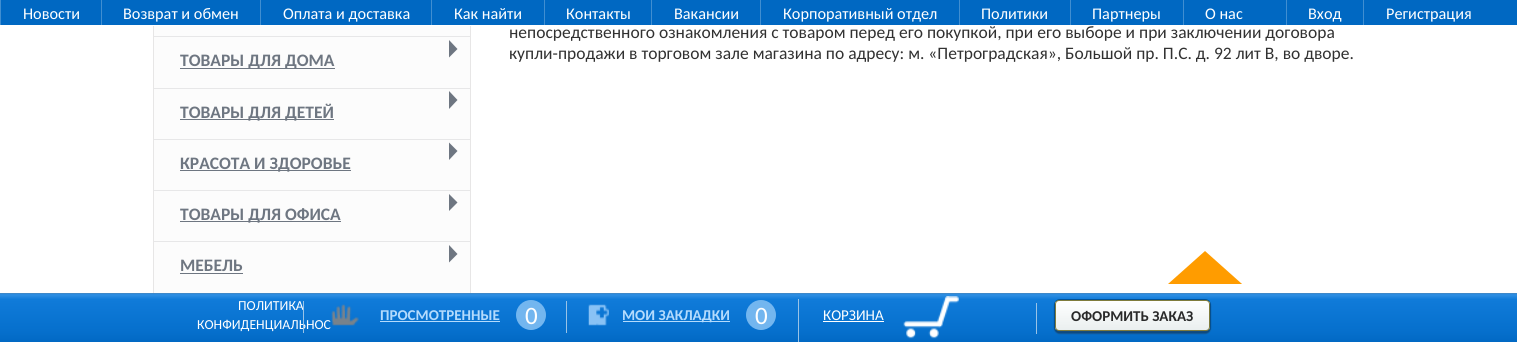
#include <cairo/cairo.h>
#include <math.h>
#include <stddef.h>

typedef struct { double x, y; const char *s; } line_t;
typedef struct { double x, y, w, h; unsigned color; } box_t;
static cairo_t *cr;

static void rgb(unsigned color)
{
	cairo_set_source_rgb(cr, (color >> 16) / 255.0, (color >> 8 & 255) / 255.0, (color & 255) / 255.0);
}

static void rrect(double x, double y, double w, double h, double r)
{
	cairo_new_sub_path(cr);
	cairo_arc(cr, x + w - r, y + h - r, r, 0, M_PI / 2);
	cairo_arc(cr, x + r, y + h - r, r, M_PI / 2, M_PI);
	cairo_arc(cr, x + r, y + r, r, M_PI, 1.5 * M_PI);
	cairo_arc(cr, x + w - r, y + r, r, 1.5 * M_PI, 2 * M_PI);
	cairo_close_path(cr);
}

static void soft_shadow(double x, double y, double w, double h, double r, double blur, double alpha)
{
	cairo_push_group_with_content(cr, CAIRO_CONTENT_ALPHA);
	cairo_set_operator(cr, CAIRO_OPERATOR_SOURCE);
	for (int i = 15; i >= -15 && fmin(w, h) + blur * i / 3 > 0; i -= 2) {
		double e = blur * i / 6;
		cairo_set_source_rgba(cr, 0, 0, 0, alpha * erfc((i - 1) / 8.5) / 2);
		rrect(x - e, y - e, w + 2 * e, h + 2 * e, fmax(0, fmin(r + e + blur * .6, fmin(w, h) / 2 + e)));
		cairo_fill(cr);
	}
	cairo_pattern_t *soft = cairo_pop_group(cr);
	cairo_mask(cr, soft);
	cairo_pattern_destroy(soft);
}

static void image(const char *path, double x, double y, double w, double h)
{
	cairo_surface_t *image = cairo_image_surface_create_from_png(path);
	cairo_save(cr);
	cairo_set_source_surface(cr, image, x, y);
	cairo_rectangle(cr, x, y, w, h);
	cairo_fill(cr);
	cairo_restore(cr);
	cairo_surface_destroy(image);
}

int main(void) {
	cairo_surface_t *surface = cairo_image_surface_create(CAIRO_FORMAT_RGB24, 1517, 342);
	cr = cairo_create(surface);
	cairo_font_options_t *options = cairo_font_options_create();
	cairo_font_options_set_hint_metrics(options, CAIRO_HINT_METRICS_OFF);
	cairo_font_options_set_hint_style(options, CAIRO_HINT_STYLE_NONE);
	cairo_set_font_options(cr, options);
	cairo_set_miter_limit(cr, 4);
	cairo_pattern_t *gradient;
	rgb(0xffffff);
	cairo_paint(cr);
	{
		static const box_t items[] = {
			{1, 0, 1516, 25, 0x0068c2},
			{0, 0, 1, 25, 0x408ed1},
			{101, 0, 1, 25, 0x408ed1},
			{260, 0, 1, 25, 0x408ed1},
			{431, 0, 1, 25, 0x408ed1},
			{544, 0, 1, 25, 0x408ed1},
			{651, 0, 1, 25, 0x408ed1},
			{760, 0, 1, 25, 0x408ed1},
			{959, 0, 1, 25, 0x408ed1},
			{1070, 0, 1, 25, 0x408ed1},
			{1183, 0, 1, 25, 0x408ed1},
			{1286, 0, 1, 25, 0x408ed1},
			{1363, 0, 1, 25, 0x408ed1},
			{470, 26, 1, 267, 0xe7e6e6},
			{153, 26, 1, 267, 0xe7e6e6},
			{154, 26, 316, 10, 0xfcfcfc},
			{154, 37, 316, 51, 0xfcfcfc},
			{154, 36, 316, 1, 0xe7e7e8},
		};
		for (size_t i = 0; i < sizeof items / sizeof *items; i++) {
			rgb(items[i].color);
			cairo_rectangle(cr, items[i].x, items[i].y, items[i].w, items[i].h);
			cairo_fill(cr);
		}
	}
	rgb(0x6e7681);
	cairo_new_path(cr);
	cairo_move_to(cr, 449, 57.5);
	cairo_line_to(cr, 449, 40);
	cairo_line_to(cr, 457.5, 49);
	cairo_close_path(cr);
	cairo_fill(cr);
	{
		static const box_t items[] = {
			{180, 68, 155, 1, 0x6e7681},
			{154, 89, 316, 50, 0xfcfcfc},
			{154, 88, 316, 1, 0xe7e7e8},
		};
		for (size_t i = 0; i < sizeof items / sizeof *items; i++) {
			rgb(items[i].color);
			cairo_rectangle(cr, items[i].x, items[i].y, items[i].w, items[i].h);
			cairo_fill(cr);
		}
	}
	rgb(0x6e7681);
	cairo_new_path(cr);
	cairo_move_to(cr, 449, 109);
	cairo_line_to(cr, 449, 91);
	cairo_line_to(cr, 457.5, 100);
	cairo_close_path(cr);
	cairo_fill(cr);
	{
		static const box_t items[] = {
			{180, 119, 154, 1, 0x6e7681},
			{154, 140, 316, 50, 0xfcfcfc},
			{154, 139, 316, 1, 0xe7e7e8},
		};
		for (size_t i = 0; i < sizeof items / sizeof *items; i++) {
			rgb(items[i].color);
			cairo_rectangle(cr, items[i].x, items[i].y, items[i].w, items[i].h);
			cairo_fill(cr);
		}
	}
	rgb(0x6e7681);
	cairo_new_path(cr);
	cairo_move_to(cr, 449, 160);
	cairo_line_to(cr, 449, 142.5);
	cairo_line_to(cr, 457.5, 151);
	cairo_close_path(cr);
	cairo_fill(cr);
	{
		static const box_t items[] = {
			{180, 170, 171, 1, 0x6e7681},
			{154, 191, 316, 50, 0xfcfcfc},
			{154, 190, 316, 1, 0xe7e7e8},
		};
		for (size_t i = 0; i < sizeof items / sizeof *items; i++) {
			rgb(items[i].color);
			cairo_rectangle(cr, items[i].x, items[i].y, items[i].w, items[i].h);
			cairo_fill(cr);
		}
	}
	rgb(0x6e7681);
	cairo_new_path(cr);
	cairo_move_to(cr, 449, 211);
	cairo_line_to(cr, 449, 194);
	cairo_line_to(cr, 457.5, 202.5);
	cairo_close_path(cr);
	cairo_fill(cr);
	{
		static const box_t items[] = {
			{180, 221, 161, 1, 0x6e7681},
			{154, 242, 316, 51, 0xfcfcfc},
			{154, 241, 316, 1, 0xe7e7e8},
		};
		for (size_t i = 0; i < sizeof items / sizeof *items; i++) {
			rgb(items[i].color);
			cairo_rectangle(cr, items[i].x, items[i].y, items[i].w, items[i].h);
			cairo_fill(cr);
		}
	}
	rgb(0x6e7681);
	cairo_new_path(cr);
	cairo_move_to(cr, 449, 262.5);
	cairo_line_to(cr, 449, 245);
	cairo_line_to(cr, 457.5, 254);
	cairo_close_path(cr);
	cairo_fill(cr);
	cairo_rectangle(cr, 180, 273, 63, 1);
	cairo_fill(cr);
	gradient = cairo_pattern_create_linear(759, 294, 759, 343);
	cairo_pattern_add_color_stop_rgba(gradient, 0.03, 0.169, 0.549, 0.882, 1);
	cairo_pattern_add_color_stop_rgba(gradient, 0.11, 0.063, 0.482, 0.851, 1);
	cairo_pattern_add_color_stop_rgba(gradient, 0.75, 0.024, 0.439, 0.804, 1);
	cairo_pattern_add_color_stop_rgba(gradient, 1, 0.004, 0.408, 0.765, 1);
	cairo_set_source(cr, gradient);
	cairo_pattern_destroy(gradient);
	cairo_rectangle(cr, 0, 294, 1517, 48);
	cairo_fill(cr);
	rgb(0x3e88c9);
	cairo_rectangle(cr, 0, 293, 1517, 1);
	cairo_fill(cr);
	rgb(0xff9c00);
	cairo_new_path(cr);
	cairo_move_to(cr, 1242, 284);
	cairo_line_to(cr, 1168, 284);
	cairo_line_to(cr, 1205, 251);
	cairo_close_path(cr);
	cairo_fill(cr);
	image("img/1.png", 331, 304, 28, 22);
	rgb(0xb4dbfd);
	cairo_rectangle(cr, 380, 321, 120, 1);
	cairo_fill(cr);
	rgb(0x73b6ef);
	cairo_arc(cr, 531, 315, 15, 0, 2 * M_PI);
	cairo_fill(cr);
	rgb(0x99c3e7);
	cairo_rectangle(cr, 566, 301, 1, 32);
	cairo_fill(cr);
	image("img/2.png", 588, 304, 21, 22);
	rgb(0xb4dbfd);
	cairo_rectangle(cr, 623, 321, 107, 1);
	cairo_fill(cr);
	rgb(0x73b6ef);
	cairo_arc(cr, 761, 315, 15, 0, 2 * M_PI);
	cairo_fill(cr);
	rgb(0x99c3e7);
	cairo_rectangle(cr, 798, 299, 1, 43);
	cairo_fill(cr);
	image("img/3.png", 903, 296, 56, 43);
	rgb(0xffffff);
	cairo_rectangle(cr, 823, 321, 61, 1);
	cairo_fill(cr);
	rgb(0x194164);
	soft_shadow(1054, 300, 157, 34, 6, 0.5, 0.5);
	rrect(1054.5, 299.5, 156, 33, 5.5);
	rgb(0x035194);
	cairo_set_line_width(cr, 1);
	cairo_stroke(cr);
	rgb(0x99c3e7);
	cairo_rectangle(cr, 1036, 303, 1, 31);
	cairo_fill(cr);
	rgb(0x194164);
	soft_shadow(1055, 301, 155, 32, 4, 0.5, 0.5);
	cairo_save(cr);
	rrect(1055, 300, 155, 31, 4);
	cairo_clip(cr);
	gradient = cairo_pattern_create_linear(1133, 301, 1133, 330);
	cairo_pattern_add_color_stop_rgba(gradient, 0, 1, 1, 1, 1);
	cairo_pattern_add_color_stop_rgba(gradient, 1, 0.918, 0.937, 0.937, 1);
	cairo_set_source(cr, gradient);
	cairo_pattern_destroy(gradient);
	cairo_rectangle(cr, 1055, 301, 155, 29);
	cairo_fill(cr);
	cairo_restore(cr);
	rrect(1055.5, 300.5, 154, 30, 3.5);
	rgb(0x807c3c);
	cairo_stroke(cr);
	cairo_select_font_face(cr, "Carlito", CAIRO_FONT_SLANT_NORMAL, CAIRO_FONT_WEIGHT_NORMAL);
	cairo_set_font_size(cr, 16.25);
	rgb(0xffffff);
	{
		static const line_t items[] = {
			{23, 19, "Новости"},
			{123, 19, "Возврат и обмен"},
			{283, 19, "Оплата и доставка"},
			{454, 19, "Как найти"},
			{566, 19, "Контакты"},
			{674, 19, "Вакансии"},
			{783, 19, "Корпоративный отдел"},
			{981, 19, "Политики"},
			{1092, 19, "Партнеры"},
			{1205, 19, "О нас"},
			{1308, 19, "Вход"},
			{1386, 19, "Регистрация"},
		};
		for (size_t i = 0; i < sizeof items / sizeof *items; i++) {
			cairo_move_to(cr, items[i].x, items[i].y);
			cairo_show_text(cr, items[i].s);
		}
	}
	cairo_set_font_size(cr, 17.5);
	rgb(0x313131);
	cairo_move_to(cr, 509, 38);
	cairo_show_text(cr, "непосредственного ознакомления с товаром перед его покупкой, при его выборе и при заключении договора");
	cairo_move_to(cr, 509, 59);
	cairo_show_text(cr, "купли-продажи в торговом зале магазина по адресу: м. «Петроградская», Большой пр. П.С. д. 92 лит В, во дворе.");
	cairo_select_font_face(cr, "Carlito", CAIRO_FONT_SLANT_NORMAL, CAIRO_FONT_WEIGHT_BOLD);
	rgb(0x6e7681);
	{
		static const line_t items[] = {
			{180, 66, "ТОВАРЫ ДЛЯ ДОМА"},
			{180, 118, "ТОВАРЫ ДЛЯ ДЕТЕЙ"},
			{180, 169, "КРАСОТА И ЗДОРОВЬЕ"},
			{180, 220, "ТОВАРЫ ДЛЯ ОФИСА"},
			{180, 271, "МЕБЕЛЬ"},
		};
		for (size_t i = 0; i < sizeof items / sizeof *items; i++) {
			cairo_move_to(cr, items[i].x, items[i].y);
			cairo_show_text(cr, items[i].s);
		}
	}
	cairo_select_font_face(cr, "Carlito", CAIRO_FONT_SLANT_NORMAL, CAIRO_FONT_WEIGHT_NORMAL);
	cairo_set_font_size(cr, 13.75);
	rgb(0xffffff);
	cairo_move_to(cr, 238, 310);
	cairo_show_text(cr, "ПОЛИТИКА");
	cairo_move_to(cr, 197, 329);
	cairo_show_text(cr, "КОНФИДЕНЦИАЛЬНОС");
	rgb(0x99c3e7);
	cairo_rectangle(cr, 303, 301, 1, 32);
	cairo_fill(cr);
	cairo_select_font_face(cr, "Carlito", CAIRO_FONT_SLANT_NORMAL, CAIRO_FONT_WEIGHT_BOLD);
	cairo_set_font_size(cr, 15);
	rgb(0xb4dbfd);
	cairo_move_to(cr, 380, 320);
	cairo_show_text(cr, "ПРОСМОТРЕННЫЕ");
	cairo_select_font_face(cr, "Carlito", CAIRO_FONT_SLANT_NORMAL, CAIRO_FONT_WEIGHT_NORMAL);
	cairo_set_font_size(cr, 25);
	rgb(0xffffff);
	cairo_move_to(cr, 525, 324);
	cairo_show_text(cr, "0");
	cairo_select_font_face(cr, "Carlito", CAIRO_FONT_SLANT_NORMAL, CAIRO_FONT_WEIGHT_BOLD);
	cairo_set_font_size(cr, 15);
	rgb(0xb4dbfd);
	cairo_move_to(cr, 622, 320);
	cairo_show_text(cr, "МОИ ЗАКЛАДКИ");
	cairo_select_font_face(cr, "Carlito", CAIRO_FONT_SLANT_NORMAL, CAIRO_FONT_WEIGHT_NORMAL);
	cairo_set_font_size(cr, 25);
	rgb(0xffffff);
	cairo_move_to(cr, 755, 324);
	cairo_show_text(cr, "0");
	cairo_set_font_size(cr, 15);
	cairo_move_to(cr, 823, 320);
	cairo_show_text(cr, "КОРЗИНА");
	cairo_select_font_face(cr, "Carlito", CAIRO_FONT_SLANT_NORMAL, CAIRO_FONT_WEIGHT_BOLD);
	rgb(0x2a2a2a);
	cairo_move_to(cr, 1071, 321);
	cairo_show_text(cr, "ОФОРМИТЬ ЗАКАЗ");
	cairo_surface_write_to_png(surface, "page.png");
	cairo_font_options_destroy(options);
	cairo_destroy(cr);
	cairo_surface_destroy(surface);
	return 0;
}
